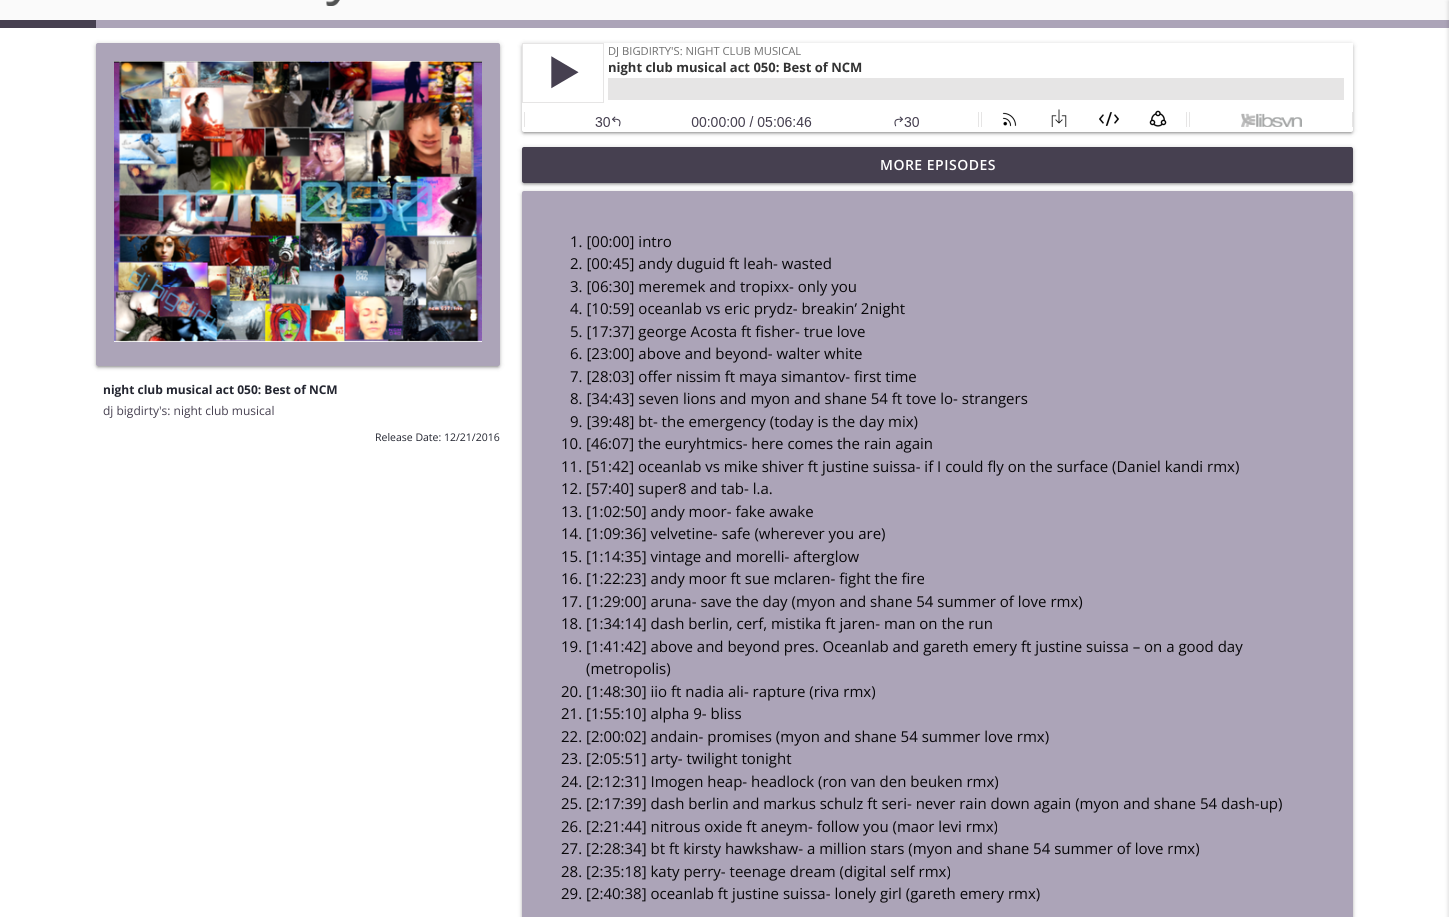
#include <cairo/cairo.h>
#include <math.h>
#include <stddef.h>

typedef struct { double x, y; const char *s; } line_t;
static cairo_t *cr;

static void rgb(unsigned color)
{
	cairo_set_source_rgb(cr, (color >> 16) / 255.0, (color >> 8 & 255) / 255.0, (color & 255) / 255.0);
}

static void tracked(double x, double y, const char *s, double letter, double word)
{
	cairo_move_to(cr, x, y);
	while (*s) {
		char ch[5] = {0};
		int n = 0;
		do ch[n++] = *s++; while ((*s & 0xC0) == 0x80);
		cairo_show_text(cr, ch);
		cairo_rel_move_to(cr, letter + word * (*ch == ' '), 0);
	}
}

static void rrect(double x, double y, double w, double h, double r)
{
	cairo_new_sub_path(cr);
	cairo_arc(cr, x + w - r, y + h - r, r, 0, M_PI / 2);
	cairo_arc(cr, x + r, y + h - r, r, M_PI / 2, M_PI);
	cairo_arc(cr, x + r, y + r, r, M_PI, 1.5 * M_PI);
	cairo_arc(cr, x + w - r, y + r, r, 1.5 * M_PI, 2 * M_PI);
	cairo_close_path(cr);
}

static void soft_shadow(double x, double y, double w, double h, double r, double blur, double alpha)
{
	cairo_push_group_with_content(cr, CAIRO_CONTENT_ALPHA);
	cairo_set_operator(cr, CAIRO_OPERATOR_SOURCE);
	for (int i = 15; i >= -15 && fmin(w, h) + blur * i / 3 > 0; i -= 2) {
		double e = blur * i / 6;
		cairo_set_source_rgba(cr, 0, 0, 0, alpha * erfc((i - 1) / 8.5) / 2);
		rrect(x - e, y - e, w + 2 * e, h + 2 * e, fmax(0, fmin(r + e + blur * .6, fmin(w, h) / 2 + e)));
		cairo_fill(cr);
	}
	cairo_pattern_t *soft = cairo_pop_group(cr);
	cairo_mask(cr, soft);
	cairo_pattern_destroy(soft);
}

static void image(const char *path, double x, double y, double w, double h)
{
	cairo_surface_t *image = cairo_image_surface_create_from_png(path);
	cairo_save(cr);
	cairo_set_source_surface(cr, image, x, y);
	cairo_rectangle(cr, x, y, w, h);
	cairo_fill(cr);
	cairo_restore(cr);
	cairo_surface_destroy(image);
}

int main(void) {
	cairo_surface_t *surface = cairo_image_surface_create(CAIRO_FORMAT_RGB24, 1449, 917);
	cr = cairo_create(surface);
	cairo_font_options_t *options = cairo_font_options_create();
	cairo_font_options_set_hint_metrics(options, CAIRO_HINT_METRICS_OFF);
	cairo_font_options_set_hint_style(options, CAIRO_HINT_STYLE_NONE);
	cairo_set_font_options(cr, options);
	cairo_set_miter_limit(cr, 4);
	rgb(0xffffff);
	cairo_paint(cr);
	rgb(0xfafafa);
	cairo_rectangle(cr, 0, 0, 1449, 20);
	cairo_fill(cr);
	image("img/1.png", 326, 0, 14, 6);
	rgb(0xaca4b8);
	cairo_rectangle(cr, 96, 20, 1353, 8);
	cairo_fill(cr);
	rgb(0x464050);
	cairo_rectangle(cr, 0, 20, 96, 8);
	cairo_fill(cr);
	rgb(0x000000);
	soft_shadow(522, 44, 831, 89, 2, 2.5, 0.2);
	soft_shadow(524, 48, 827, 85, 0, 0.5, 0.12);
	soft_shadow(522, 45, 831, 89, 2, 1, 0.14);
	rgb(0xffffff);
	rrect(522, 43, 831, 89, 2);
	cairo_fill(cr);
	image("img/2.png", 522, 43, 831, 84);
	rgb(0x000000);
	soft_shadow(522, 148, 831, 36, 2, 2.5, 0.2);
	soft_shadow(524, 152, 827, 32, 0, 0.5, 0.12);
	soft_shadow(522, 149, 831, 36, 2, 1, 0.14);
	rgb(0x464050);
	rrect(522, 147, 831, 36, 2);
	cairo_fill(cr);
	rgb(0x000000);
	soft_shadow(96, 44, 404, 323, 2, 2.5, 0.2);
	soft_shadow(98, 48, 400, 319, 0, 0.5, 0.12);
	soft_shadow(96, 45, 404, 323, 2, 1, 0.14);
	rgb(0xaca4b8);
	rrect(96, 43, 404, 323, 2);
	cairo_fill(cr);
	image("img/3.png", 114, 61, 368, 281);
	rgb(0x000000);
	soft_shadow(522, 192, 831, 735, 2, 2.5, 0.2);
	soft_shadow(522, 193, 831, 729, 2, 1, 0.14);
	rgb(0xaca4b8);
	rrect(522, 191, 831, 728, 2);
	cairo_fill(cr);
	rgb(0x000000);
	soft_shadow(1449, 1, 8, 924, 0, 2.5, 0.2);
	cairo_select_font_face(cr, "Open Sans SemiBold", CAIRO_FONT_SLANT_NORMAL, CAIRO_FONT_WEIGHT_NORMAL);
	cairo_set_font_size(cr, 14);
	rgb(0xffffff);
	tracked(880, 170, "MORE EPISODES", 0.5, 0);
	cairo_select_font_face(cr, "Open Sans", CAIRO_FONT_SLANT_NORMAL, CAIRO_FONT_WEIGHT_BOLD);
	cairo_set_font_size(cr, 12);
	rgb(0x232530);
	cairo_move_to(cr, 103, 394);
	cairo_show_text(cr, "night club musical act 050: Best of NCM");
	cairo_select_font_face(cr, "Open Sans", CAIRO_FONT_SLANT_NORMAL, CAIRO_FONT_WEIGHT_NORMAL);
	rgb(0x464050);
	cairo_move_to(cr, 103, 415);
	cairo_show_text(cr, "dj bigdirty's: night club musical");
	cairo_set_font_size(cr, 10.5);
	rgb(0x232530);
	cairo_move_to(cr, 375, 441);
	cairo_show_text(cr, "Release Date: 12/21/2016");
	cairo_set_font_size(cr, 15);
	rgb(0x080709);
	{
		static const line_t items[] = {
			{570, 247, "1. [00:00] intro"},
			{570, 269, "2. [00:45] andy duguid ft leah- wasted"},
			{570, 292, "3. [06:30] meremek and tropixx- only you"},
			{570, 314, "4. [10:59] oceanlab vs eric prydz- breakin’ 2night"},
			{570, 337, "5. [17:37] george Acosta ft fisher- true love"},
			{570, 359, "6. [23:00] above and beyond- walter white"},
			{570, 382, "7. [28:03] offer nissim ft maya simantov- first time"},
			{570, 404, "8. [34:43] seven lions and myon and shane 54 ft tove lo- strangers"},
			{570, 427, "9. [39:48] bt- the emergency (today is the day mix)"},
			{561, 449, "10. [46:07] the euryhtmics- here comes the rain again"},
			{561, 472, "11. [51:42] oceanlab vs mike shiver ft justine suissa- if I could fly on the surface (Daniel kandi rmx)"},
			{561, 494, "12. [57:40] super8 and tab- l.a."},
			{561, 517, "13. [1:02:50] andy moor- fake awake"},
			{561, 539, "14. [1:09:36] velvetine- safe (wherever you are)"},
			{561, 562, "15. [1:14:35] vintage and morelli- afterglow"},
			{561, 584, "16. [1:22:23] andy moor ft sue mclaren- fight the fire"},
			{561, 607, "17. [1:29:00] aruna- save the day (myon and shane 54 summer of love rmx)"},
			{561, 629, "18. [1:34:14] dash berlin, cerf, mistika ft jaren- man on the run"},
			{561, 652, "19. [1:41:42] above and beyond pres. Oceanlab and gareth emery ft justine suissa – on a good day"},
			{586, 674, "(metropolis)"},
			{561, 697, "20. [1:48:30] iio ft nadia ali- rapture (riva rmx)"},
			{561, 719, "21. [1:55:10] alpha 9- bliss"},
			{561, 742, "22. [2:00:02] andain- promises (myon and shane 54 summer love rmx)"},
			{561, 764, "23. [2:05:51] arty- twilight tonight"},
			{561, 787, "24. [2:12:31] Imogen heap- headlock (ron van den beuken rmx)"},
			{561, 809, "25. [2:17:39] dash berlin and markus schulz ft seri- never rain down again (myon and shane 54 dash-up)"},
			{561, 832, "26. [2:21:44] nitrous oxide ft aneym- follow you (maor levi rmx)"},
			{561, 854, "27. [2:28:34] bt ft kirsty hawkshaw- a million stars (myon and shane 54 summer of love rmx)"},
			{561, 877, "28. [2:35:18] katy perry- teenage dream (digital self rmx)"},
			{561, 899, "29. [2:40:38] oceanlab ft justine suissa- lonely girl (gareth emery rmx)"},
		};
		for (size_t i = 0; i < sizeof items / sizeof *items; i++) {
			cairo_move_to(cr, items[i].x, items[i].y);
			cairo_show_text(cr, items[i].s);
		}
	}
	cairo_surface_write_to_png(surface, "page.png");
	cairo_font_options_destroy(options);
	cairo_destroy(cr);
	cairo_surface_destroy(surface);
	return 0;
}
